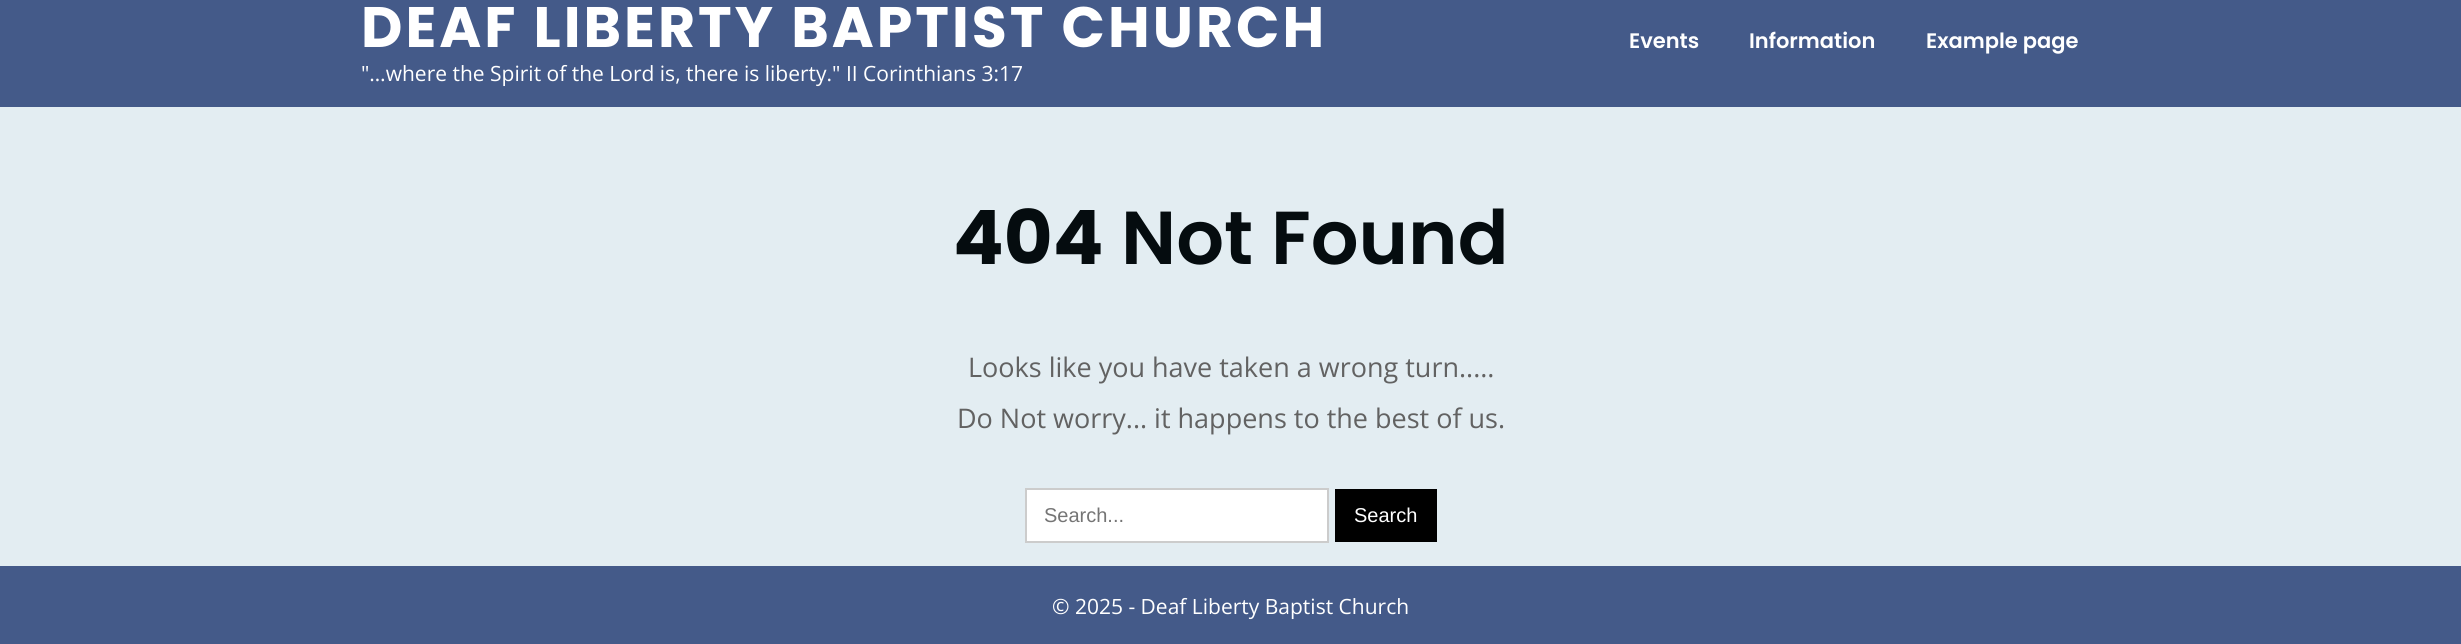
#include <cairo/cairo.h>
#include <math.h>
#include <stddef.h>

typedef struct { double x, y; const char *s; } line_t;
static cairo_t *cr;

static void rgb(unsigned color)
{
	cairo_set_source_rgb(cr, (color >> 16) / 255.0, (color >> 8 & 255) / 255.0, (color & 255) / 255.0);
}

static void tracked(double x, double y, const char *s, double letter, double word)
{
	cairo_move_to(cr, x, y);
	while (*s) {
		char ch[5] = {0};
		int n = 0;
		do ch[n++] = *s++; while ((*s & 0xC0) == 0x80);
		cairo_show_text(cr, ch);
		cairo_rel_move_to(cr, letter + word * (*ch == ' '), 0);
	}
}

int main(void) {
	cairo_surface_t *surface = cairo_image_surface_create(CAIRO_FORMAT_RGB24, 2461, 644);
	cr = cairo_create(surface);
	cairo_font_options_t *options = cairo_font_options_create();
	cairo_font_options_set_hint_metrics(options, CAIRO_HINT_METRICS_OFF);
	cairo_font_options_set_hint_style(options, CAIRO_HINT_STYLE_NONE);
	cairo_set_font_options(cr, options);
	cairo_set_miter_limit(cr, 4);
	rgb(0xe3edf2);
	cairo_paint(cr);
	rgb(0x445a89);
	cairo_rectangle(cr, 0, 0, 2461, 107);
	cairo_fill(cr);
	rgb(0xffffff);
	cairo_rectangle(cr, 1026, 489, 302, 53);
	cairo_fill_preserve(cr);
	rgb(0xcccccc);
	cairo_stroke(cr);
	rgb(0x000000);
	cairo_rectangle(cr, 1335, 489, 102, 53);
	cairo_fill(cr);
	rgb(0x445a89);
	cairo_rectangle(cr, 0, 566, 2461, 78);
	cairo_fill(cr);
	cairo_select_font_face(cr, "Poppins", CAIRO_FONT_SLANT_NORMAL, CAIRO_FONT_WEIGHT_BOLD);
	cairo_set_font_size(cr, 57);
	rgb(0xffffff);
	tracked(361, 47, "DEAF LIBERTY BAPTIST CHURCH", 3, 0);
	cairo_select_font_face(cr, "Open Sans", CAIRO_FONT_SLANT_NORMAL, CAIRO_FONT_WEIGHT_NORMAL);
	cairo_set_font_size(cr, 21);
	cairo_move_to(cr, 361, 81);
	cairo_show_text(cr, "\"…where the Spirit of the Lord is, there is liberty.\" II Corinthians 3:17");
	cairo_select_font_face(cr, "Poppins SemiBold", CAIRO_FONT_SLANT_NORMAL, CAIRO_FONT_WEIGHT_NORMAL);
	{
		static const line_t items[] = {
			{1629, 48, "Events"},
			{1749, 48, "Information"},
			{1926, 48, "Example page"},
		};
		for (size_t i = 0; i < sizeof items / sizeof *items; i++) {
			cairo_move_to(cr, items[i].x, items[i].y);
			cairo_show_text(cr, items[i].s);
		}
	}
	cairo_select_font_face(cr, "Poppins", CAIRO_FONT_SLANT_NORMAL, CAIRO_FONT_WEIGHT_BOLD);
	cairo_set_font_size(cr, 75);
	rgb(0x050c0f);
	cairo_move_to(cr, 953, 264);
	cairo_show_text(cr, "404");
	cairo_select_font_face(cr, "Poppins SemiBold", CAIRO_FONT_SLANT_NORMAL, CAIRO_FONT_WEIGHT_NORMAL);
	cairo_move_to(cr, 1121, 264);
	cairo_show_text(cr, "Not Found");
	cairo_select_font_face(cr, "Open Sans", CAIRO_FONT_SLANT_NORMAL, CAIRO_FONT_WEIGHT_NORMAL);
	cairo_set_font_size(cr, 27);
	rgb(0x626262);
	cairo_move_to(cr, 968, 377);
	cairo_show_text(cr, "Looks like you have taken a wrong turn.....");
	cairo_move_to(cr, 957, 428);
	cairo_show_text(cr, "Do Not worry... it happens to the best of us.");
	cairo_select_font_face(cr, "Liberation Sans", CAIRO_FONT_SLANT_NORMAL, CAIRO_FONT_WEIGHT_NORMAL);
	cairo_set_font_size(cr, 20);
	rgb(0x757575);
	cairo_move_to(cr, 1044, 522);
	cairo_show_text(cr, "Search...");
	rgb(0xffffff);
	cairo_move_to(cr, 1354, 522);
	cairo_show_text(cr, "Search");
	cairo_select_font_face(cr, "Open Sans", CAIRO_FONT_SLANT_NORMAL, CAIRO_FONT_WEIGHT_NORMAL);
	cairo_set_font_size(cr, 21);
	cairo_move_to(cr, 1052, 614);
	cairo_show_text(cr, "© 2025 - Deaf Liberty Baptist Church");
	cairo_surface_write_to_png(surface, "page.png");
	cairo_font_options_destroy(options);
	cairo_destroy(cr);
	cairo_surface_destroy(surface);
	return 0;
}
